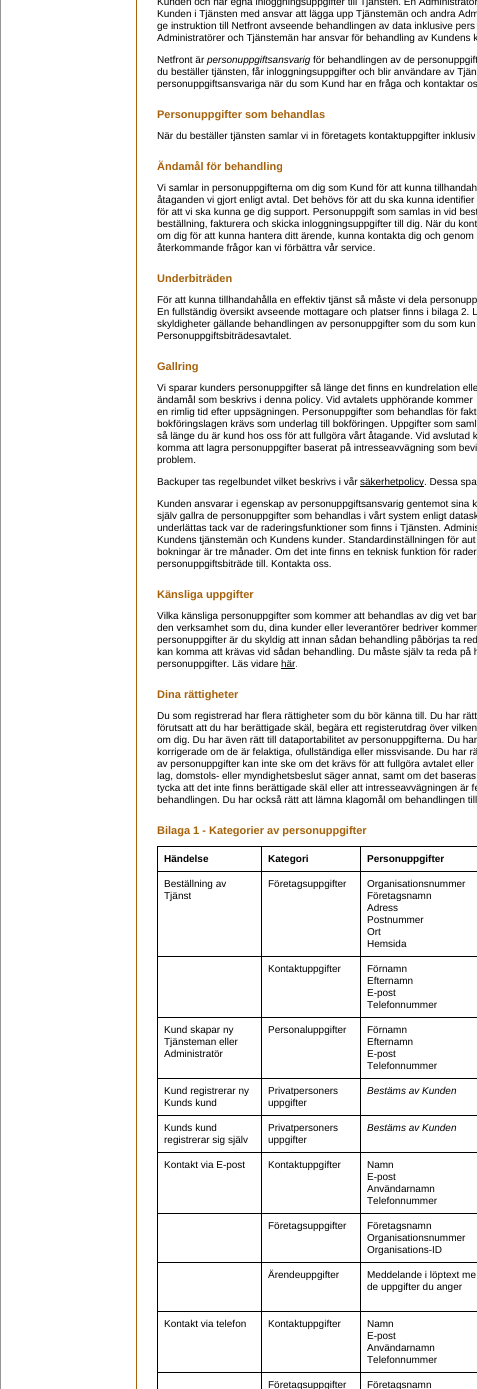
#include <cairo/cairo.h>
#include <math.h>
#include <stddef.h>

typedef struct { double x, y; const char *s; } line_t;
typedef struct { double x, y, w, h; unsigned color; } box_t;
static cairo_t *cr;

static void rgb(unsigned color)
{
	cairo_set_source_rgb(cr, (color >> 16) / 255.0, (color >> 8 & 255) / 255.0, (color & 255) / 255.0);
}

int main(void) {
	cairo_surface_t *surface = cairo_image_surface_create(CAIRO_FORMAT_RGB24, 477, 1389);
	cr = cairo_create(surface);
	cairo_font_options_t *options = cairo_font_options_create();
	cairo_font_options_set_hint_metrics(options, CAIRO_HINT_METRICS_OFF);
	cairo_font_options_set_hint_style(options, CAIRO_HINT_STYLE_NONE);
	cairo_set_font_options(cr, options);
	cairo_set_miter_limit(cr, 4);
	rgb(0xffffff);
	cairo_paint(cr);
	cairo_rectangle(cr, 0.5, -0.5, 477, 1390);
	rgb(0x969696);
	cairo_set_line_width(cr, 1);
	cairo_stroke(cr);
	{
		static const box_t items[] = {
			{136, 0, 1, 1389, 0xa6610b},
			{360, 486, 64, 1, 0x000000},
			{281, 668, 14, 1, 0x000000},
			{360, 846, 117, 1, 0x000000},
			{360, 871, 117, 1, 0x000000},
			{360, 956, 117, 1, 0x000000},
			{360, 1017, 117, 1, 0x000000},
			{360, 1078, 117, 1, 0x000000},
			{360, 1115, 117, 1, 0x000000},
			{360, 1152, 117, 1, 0x000000},
			{360, 1213, 117, 1, 0x000000},
			{360, 1262, 117, 1, 0x000000},
			{360, 1311, 117, 1, 0x000000},
			{360, 1372, 117, 1, 0x000000},
			{360, 1372, 1, 17, 0x000000},
			{261, 1372, 100, 1, 0x000000},
			{360, 1311, 1, 62, 0x000000},
			{261, 1311, 100, 1, 0x000000},
			{360, 1262, 1, 50, 0x000000},
			{261, 1262, 100, 1, 0x000000},
			{360, 1213, 1, 50, 0x000000},
			{261, 1213, 100, 1, 0x000000},
			{360, 1152, 1, 62, 0x000000},
			{261, 1152, 100, 1, 0x000000},
			{360, 1115, 1, 38, 0x000000},
			{261, 1115, 100, 1, 0x000000},
			{360, 1078, 1, 38, 0x000000},
			{261, 1078, 100, 1, 0x000000},
			{360, 1017, 1, 62, 0x000000},
			{261, 1017, 100, 1, 0x000000},
			{360, 956, 1, 62, 0x000000},
			{261, 956, 100, 1, 0x000000},
			{360, 871, 1, 86, 0x000000},
			{261, 871, 100, 1, 0x000000},
			{360, 846, 1, 26, 0x000000},
			{261, 846, 100, 1, 0x000000},
			{261, 1372, 1, 17, 0x000000},
			{157, 1372, 105, 1, 0x000000},
			{261, 1311, 1, 62, 0x000000},
			{157, 1311, 105, 1, 0x000000},
			{261, 1262, 1, 50, 0x000000},
			{157, 1262, 105, 1, 0x000000},
			{261, 1213, 1, 50, 0x000000},
			{157, 1213, 105, 1, 0x000000},
			{261, 1152, 1, 62, 0x000000},
			{157, 1152, 105, 1, 0x000000},
			{261, 1115, 1, 38, 0x000000},
			{157, 1115, 105, 1, 0x000000},
			{261, 1078, 1, 38, 0x000000},
			{157, 1078, 105, 1, 0x000000},
			{261, 1017, 1, 62, 0x000000},
			{157, 1017, 105, 1, 0x000000},
			{261, 956, 1, 62, 0x000000},
			{157, 956, 105, 1, 0x000000},
			{261, 871, 1, 86, 0x000000},
			{157, 871, 105, 1, 0x000000},
			{261, 846, 1, 26, 0x000000},
			{157, 846, 105, 1, 0x000000},
			{157, 1372, 1, 17, 0x000000},
			{157, 1311, 1, 62, 0x000000},
			{157, 1262, 1, 50, 0x000000},
			{157, 1213, 1, 50, 0x000000},
			{157, 1152, 1, 62, 0x000000},
			{157, 1115, 1, 38, 0x000000},
			{157, 1078, 1, 38, 0x000000},
			{157, 1017, 1, 62, 0x000000},
			{157, 956, 1, 62, 0x000000},
			{157, 871, 1, 86, 0x000000},
			{157, 846, 1, 26, 0x000000},
		};
		for (size_t i = 0; i < sizeof items / sizeof *items; i++) {
			rgb(items[i].color);
			cairo_rectangle(cr, items[i].x, items[i].y, items[i].w, items[i].h);
			cairo_fill(cr);
		}
	}
	cairo_select_font_face(cr, "Liberation Sans", CAIRO_FONT_SLANT_NORMAL, CAIRO_FONT_WEIGHT_NORMAL);
	cairo_set_font_size(cr, 10);
	{
		static const line_t items[] = {
			{157, 5, "Kunden och har egna inloggningsuppgifter till Tjänsten. En Administratör"},
			{157, 17, "Kunden i Tjänsten med ansvar att lägga upp Tjänstemän och andra Adm"},
			{157, 29, "ge instruktion till Netfront avseende behandlingen av data inklusive pers"},
			{157, 41, "Administratörer och Tjänstemän har ansvar för behandling av Kundens k"},
			{157, 63, "Netfront är"},
		};
		for (size_t i = 0; i < sizeof items / sizeof *items; i++) {
			cairo_move_to(cr, items[i].x, items[i].y);
			cairo_show_text(cr, items[i].s);
		}
	}
	cairo_select_font_face(cr, "Liberation Sans", CAIRO_FONT_SLANT_ITALIC, CAIRO_FONT_WEIGHT_NORMAL);
	cairo_move_to(cr, 207, 63);
	cairo_show_text(cr, "personuppgiftsansvarig");
	cairo_select_font_face(cr, "Liberation Sans", CAIRO_FONT_SLANT_NORMAL, CAIRO_FONT_WEIGHT_NORMAL);
	{
		static const line_t items[] = {
			{313, 63, "för behandlingen av de personuppgift"},
			{157, 75, "du beställer tjänsten, får inloggningsuppgifter och blir användare av Tjän"},
			{157, 87, "personuppgiftsansvariga när du som Kund har en fråga och kontaktar os"},
		};
		for (size_t i = 0; i < sizeof items / sizeof *items; i++) {
			cairo_move_to(cr, items[i].x, items[i].y);
			cairo_show_text(cr, items[i].s);
		}
	}
	cairo_select_font_face(cr, "Liberation Sans", CAIRO_FONT_SLANT_NORMAL, CAIRO_FONT_WEIGHT_BOLD);
	cairo_set_font_size(cr, 11);
	rgb(0xa6610b);
	cairo_move_to(cr, 157, 118);
	cairo_show_text(cr, "Personuppgifter som behandlas");
	cairo_select_font_face(cr, "Liberation Sans", CAIRO_FONT_SLANT_NORMAL, CAIRO_FONT_WEIGHT_NORMAL);
	cairo_set_font_size(cr, 10);
	rgb(0x000000);
	cairo_move_to(cr, 157, 139);
	cairo_show_text(cr, "När du beställer tjänsten samlar vi in företagets kontaktuppgifter inklusiv");
	cairo_select_font_face(cr, "Liberation Sans", CAIRO_FONT_SLANT_NORMAL, CAIRO_FONT_WEIGHT_BOLD);
	cairo_set_font_size(cr, 11);
	rgb(0xa6610b);
	cairo_move_to(cr, 157, 170);
	cairo_show_text(cr, "Ändamål för behandling");
	cairo_select_font_face(cr, "Liberation Sans", CAIRO_FONT_SLANT_NORMAL, CAIRO_FONT_WEIGHT_NORMAL);
	cairo_set_font_size(cr, 10);
	rgb(0x000000);
	{
		static const line_t items[] = {
			{157, 191, "Vi samlar in personuppgifterna om dig som Kund för att kunna tillhandah"},
			{157, 203, "åtaganden vi gjort enligt avtal. Det behövs för att du ska kunna identifier"},
			{157, 215, "för att vi ska kunna ge dig support. Personuppgift som samlas in vid best"},
			{157, 227, "beställning, fakturera och skicka inloggningsuppgifter till dig. När du kont"},
			{157, 239, "om dig för att kunna hantera ditt ärende, kunna kontakta dig och genom"},
			{157, 251, "återkommande frågor kan vi förbättra vår service."},
		};
		for (size_t i = 0; i < sizeof items / sizeof *items; i++) {
			cairo_move_to(cr, items[i].x, items[i].y);
			cairo_show_text(cr, items[i].s);
		}
	}
	cairo_select_font_face(cr, "Liberation Sans", CAIRO_FONT_SLANT_NORMAL, CAIRO_FONT_WEIGHT_BOLD);
	cairo_set_font_size(cr, 11);
	rgb(0xa6610b);
	cairo_move_to(cr, 157, 282);
	cairo_show_text(cr, "Underbiträden");
	cairo_select_font_face(cr, "Liberation Sans", CAIRO_FONT_SLANT_NORMAL, CAIRO_FONT_WEIGHT_NORMAL);
	cairo_set_font_size(cr, 10);
	rgb(0x000000);
	{
		static const line_t items[] = {
			{157, 303, "För att kunna tillhandahålla en effektiv tjänst så måste vi dela personupp"},
			{157, 315, "En fullständig översikt avseende mottagare och platser finns i bilaga 2. L"},
			{157, 327, "skyldigheter gällande behandlingen av personuppgifter som du som kun"},
			{157, 339, "Personuppgiftsbiträdesavtalet."},
		};
		for (size_t i = 0; i < sizeof items / sizeof *items; i++) {
			cairo_move_to(cr, items[i].x, items[i].y);
			cairo_show_text(cr, items[i].s);
		}
	}
	cairo_select_font_face(cr, "Liberation Sans", CAIRO_FONT_SLANT_NORMAL, CAIRO_FONT_WEIGHT_BOLD);
	cairo_set_font_size(cr, 11);
	rgb(0xa6610b);
	cairo_move_to(cr, 157, 370);
	cairo_show_text(cr, "Gallring");
	cairo_select_font_face(cr, "Liberation Sans", CAIRO_FONT_SLANT_NORMAL, CAIRO_FONT_WEIGHT_NORMAL);
	cairo_set_font_size(cr, 10);
	rgb(0x000000);
	{
		static const line_t items[] = {
			{157, 391, "Vi sparar kunders personuppgifter så länge det finns en kundrelation elle"},
			{157, 403, "ändamål som beskrivs i denna policy. Vid avtalets upphörande kommer"},
			{157, 415, "en rimlig tid efter uppsägningen. Personuppgifter som behandlas för fakt"},
			{157, 427, "bokföringslagen krävs som underlag till bokföringen. Uppgifter som saml"},
			{157, 439, "så länge du är kund hos oss för att fullgöra vårt åtagande. Vid avslutad k"},
			{157, 451, "komma att lagra personuppgifter baserat på intresseavvägning som bevi"},
			{157, 463, "problem."},
			{157, 485, "Backuper tas regelbundet vilket beskrivs i vår"},
			{360, 485, "säkerhetpolicy. Dessa spa"},
			{157, 507, "Kunden ansvarar i egenskap av personuppgiftsansvarig gentemot sina k"},
			{157, 519, "själv gallra de personuppgifter som behandlas i vårt system enligt datask"},
			{157, 531, "underlättas tack var de raderingsfunktioner som finns i Tjänsten. Adminis"},
			{157, 543, "Kundens tjänstemän och Kundens kunder. Standardinställningen för aut"},
			{157, 555, "bokningar är tre månader. Om det inte finns en teknisk funktion för rader"},
			{157, 567, "personuppgiftsbiträde till. Kontakta oss."},
		};
		for (size_t i = 0; i < sizeof items / sizeof *items; i++) {
			cairo_move_to(cr, items[i].x, items[i].y);
			cairo_show_text(cr, items[i].s);
		}
	}
	cairo_select_font_face(cr, "Liberation Sans", CAIRO_FONT_SLANT_NORMAL, CAIRO_FONT_WEIGHT_BOLD);
	cairo_set_font_size(cr, 11);
	rgb(0xa6610b);
	cairo_move_to(cr, 157, 598);
	cairo_show_text(cr, "Känsliga uppgifter");
	cairo_select_font_face(cr, "Liberation Sans", CAIRO_FONT_SLANT_NORMAL, CAIRO_FONT_WEIGHT_NORMAL);
	cairo_set_font_size(cr, 10);
	rgb(0x000000);
	{
		static const line_t items[] = {
			{157, 619, "Vilka känsliga personuppgifter som kommer att behandlas av dig vet bar"},
			{157, 631, "den verksamhet som du, dina kunder eller leverantörer bedriver kommer"},
			{157, 643, "personuppgifter är du skyldig att innan sådan behandling påbörjas ta red"},
			{157, 655, "kan komma att krävas vid sådan behandling. Du måste själv ta reda på h"},
			{157, 667, "personuppgifter. Läs vidare här."},
		};
		for (size_t i = 0; i < sizeof items / sizeof *items; i++) {
			cairo_move_to(cr, items[i].x, items[i].y);
			cairo_show_text(cr, items[i].s);
		}
	}
	cairo_select_font_face(cr, "Liberation Sans", CAIRO_FONT_SLANT_NORMAL, CAIRO_FONT_WEIGHT_BOLD);
	cairo_set_font_size(cr, 11);
	rgb(0xa6610b);
	cairo_move_to(cr, 157, 698);
	cairo_show_text(cr, "Dina rättigheter");
	cairo_select_font_face(cr, "Liberation Sans", CAIRO_FONT_SLANT_NORMAL, CAIRO_FONT_WEIGHT_NORMAL);
	cairo_set_font_size(cr, 10);
	rgb(0x000000);
	{
		static const line_t items[] = {
			{157, 719, "Du som registrerad har flera rättigheter som du bör känna till. Du har rätt"},
			{157, 731, "förutsatt att du har berättigade skäl, begära ett registerutdrag över vilken"},
			{157, 743, "om dig. Du har även rätt till dataportabilitet av personuppgifterna. Du har"},
			{157, 755, "korrigerade om de är felaktiga, ofullständiga eller missvisande. Du har rä"},
			{157, 767, "av personuppgifter kan inte ske om det krävs för att fullgöra avtalet eller"},
			{157, 779, "lag, domstols- eller myndighetsbeslut säger annat, samt om det baseras"},
			{157, 791, "tycka att det inte finns berättigade skäl eller att intresseavvägningen är fe"},
			{157, 803, "behandlingen. Du har också rätt att lämna klagomål om behandlingen till"},
		};
		for (size_t i = 0; i < sizeof items / sizeof *items; i++) {
			cairo_move_to(cr, items[i].x, items[i].y);
			cairo_show_text(cr, items[i].s);
		}
	}
	cairo_select_font_face(cr, "Liberation Sans", CAIRO_FONT_SLANT_NORMAL, CAIRO_FONT_WEIGHT_BOLD);
	cairo_set_font_size(cr, 11);
	rgb(0xa6610b);
	cairo_move_to(cr, 157, 834);
	cairo_show_text(cr, "Bilaga 1 - Kategorier av personuppgifter");
	cairo_set_font_size(cr, 10);
	rgb(0x000000);
	{
		static const line_t items[] = {
			{164, 862, "Händelse"},
			{268, 862, "Kategori"},
			{367, 862, "Personuppgifter"},
		};
		for (size_t i = 0; i < sizeof items / sizeof *items; i++) {
			cairo_move_to(cr, items[i].x, items[i].y);
			cairo_show_text(cr, items[i].s);
		}
	}
	cairo_select_font_face(cr, "Liberation Sans", CAIRO_FONT_SLANT_NORMAL, CAIRO_FONT_WEIGHT_NORMAL);
	{
		static const line_t items[] = {
			{164, 887, "Beställning av"},
			{164, 899, "Tjänst"},
			{268, 887, "Företagsuppgifter"},
			{367, 887, "Organisationsnummer"},
			{367, 899, "Företagsnamn"},
			{367, 911, "Adress"},
			{367, 923, "Postnummer"},
			{367, 935, "Ort"},
			{367, 947, "Hemsida"},
			{268, 972, "Kontaktuppgifter"},
			{367, 972, "Förnamn"},
			{367, 984, "Efternamn"},
			{367, 996, "E-post"},
			{367, 1008, "Telefonnummer"},
			{164, 1033, "Kund skapar ny"},
			{164, 1045, "Tjänsteman eller"},
			{164, 1057, "Administratör"},
			{268, 1033, "Personaluppgifter"},
			{367, 1033, "Förnamn"},
			{367, 1045, "Efternamn"},
			{367, 1057, "E-post"},
			{367, 1069, "Telefonnummer"},
			{164, 1094, "Kund registrerar ny"},
			{164, 1106, "Kunds kund"},
			{268, 1094, "Privatpersoners"},
			{268, 1106, "uppgifter"},
		};
		for (size_t i = 0; i < sizeof items / sizeof *items; i++) {
			cairo_move_to(cr, items[i].x, items[i].y);
			cairo_show_text(cr, items[i].s);
		}
	}
	cairo_select_font_face(cr, "Liberation Sans", CAIRO_FONT_SLANT_ITALIC, CAIRO_FONT_WEIGHT_NORMAL);
	cairo_move_to(cr, 367, 1094);
	cairo_show_text(cr, "Bestäms av Kunden");
	cairo_select_font_face(cr, "Liberation Sans", CAIRO_FONT_SLANT_NORMAL, CAIRO_FONT_WEIGHT_NORMAL);
	{
		static const line_t items[] = {
			{164, 1131, "Kunds kund"},
			{164, 1143, "registrerar sig själv"},
			{268, 1131, "Privatpersoners"},
			{268, 1143, "uppgifter"},
		};
		for (size_t i = 0; i < sizeof items / sizeof *items; i++) {
			cairo_move_to(cr, items[i].x, items[i].y);
			cairo_show_text(cr, items[i].s);
		}
	}
	cairo_select_font_face(cr, "Liberation Sans", CAIRO_FONT_SLANT_ITALIC, CAIRO_FONT_WEIGHT_NORMAL);
	cairo_move_to(cr, 367, 1131);
	cairo_show_text(cr, "Bestäms av Kunden");
	cairo_select_font_face(cr, "Liberation Sans", CAIRO_FONT_SLANT_NORMAL, CAIRO_FONT_WEIGHT_NORMAL);
	{
		static const line_t items[] = {
			{164, 1168, "Kontakt via E-post"},
			{268, 1168, "Kontaktuppgifter"},
			{367, 1168, "Namn"},
			{367, 1180, "E-post"},
			{367, 1192, "Användarnamn"},
			{367, 1204, "Telefonnummer"},
			{268, 1229, "Företagsuppgifter"},
			{367, 1229, "Företagsnamn"},
			{367, 1241, "Organisationsnummer"},
			{367, 1253, "Organisations-ID"},
			{268, 1278, "Ärendeuppgifter"},
			{367, 1278, "Meddelande i löptext me"},
			{367, 1290, "de uppgifter du anger"},
			{164, 1327, "Kontakt via telefon"},
			{268, 1327, "Kontaktuppgifter"},
			{367, 1327, "Namn"},
			{367, 1339, "E-post"},
			{367, 1351, "Användarnamn"},
			{367, 1363, "Telefonnummer"},
			{268, 1388, "Företagsuppgifter"},
			{367, 1388, "Företagsnamn"},
		};
		for (size_t i = 0; i < sizeof items / sizeof *items; i++) {
			cairo_move_to(cr, items[i].x, items[i].y);
			cairo_show_text(cr, items[i].s);
		}
	}
	cairo_surface_write_to_png(surface, "page.png");
	cairo_font_options_destroy(options);
	cairo_destroy(cr);
	cairo_surface_destroy(surface);
	return 0;
}
